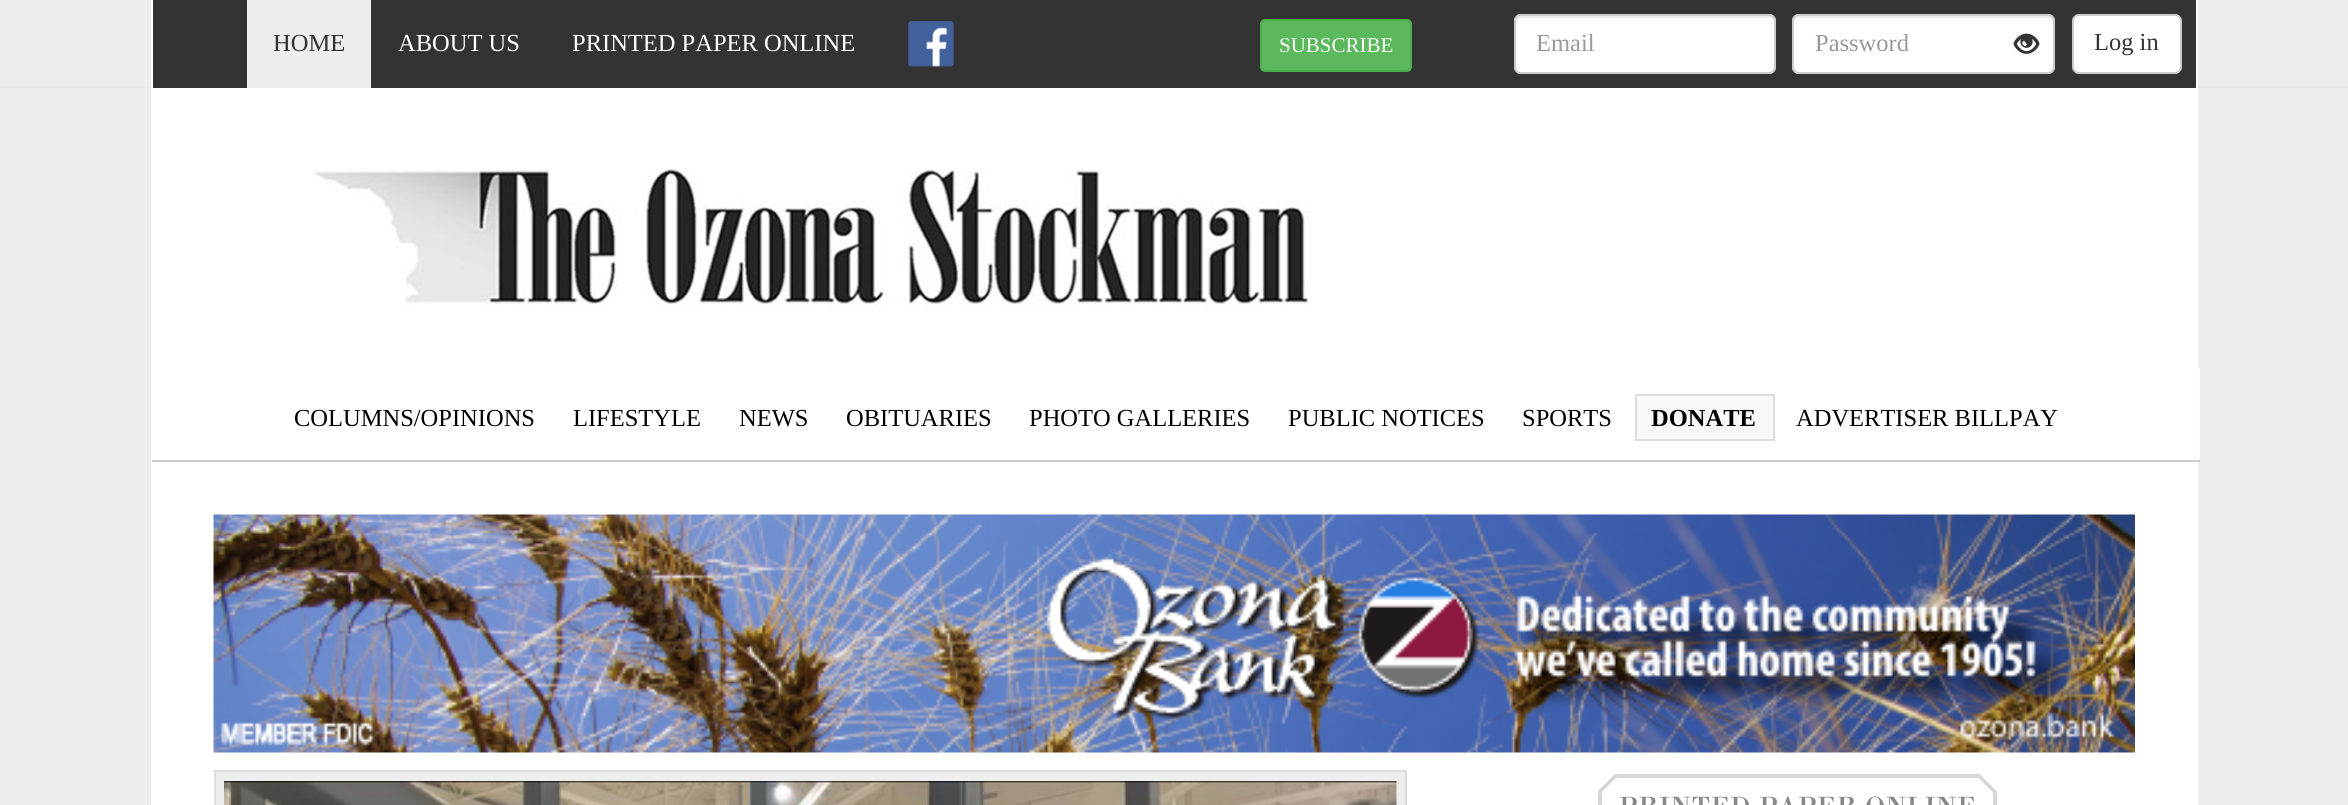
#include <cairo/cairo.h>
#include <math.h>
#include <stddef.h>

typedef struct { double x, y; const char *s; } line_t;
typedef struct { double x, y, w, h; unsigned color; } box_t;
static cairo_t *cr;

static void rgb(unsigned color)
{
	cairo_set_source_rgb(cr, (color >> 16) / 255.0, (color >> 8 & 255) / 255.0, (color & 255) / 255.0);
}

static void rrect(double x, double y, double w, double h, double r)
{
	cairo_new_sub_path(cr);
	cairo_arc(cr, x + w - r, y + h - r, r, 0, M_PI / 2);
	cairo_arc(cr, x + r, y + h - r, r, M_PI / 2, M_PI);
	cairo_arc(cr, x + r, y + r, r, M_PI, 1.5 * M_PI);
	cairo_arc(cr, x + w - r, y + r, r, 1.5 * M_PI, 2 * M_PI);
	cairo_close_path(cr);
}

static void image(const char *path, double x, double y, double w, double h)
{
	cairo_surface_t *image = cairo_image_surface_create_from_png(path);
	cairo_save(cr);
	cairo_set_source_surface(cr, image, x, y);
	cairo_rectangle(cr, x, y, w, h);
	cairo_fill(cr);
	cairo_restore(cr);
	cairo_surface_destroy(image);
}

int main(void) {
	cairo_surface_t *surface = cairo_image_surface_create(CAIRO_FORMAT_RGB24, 2348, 805);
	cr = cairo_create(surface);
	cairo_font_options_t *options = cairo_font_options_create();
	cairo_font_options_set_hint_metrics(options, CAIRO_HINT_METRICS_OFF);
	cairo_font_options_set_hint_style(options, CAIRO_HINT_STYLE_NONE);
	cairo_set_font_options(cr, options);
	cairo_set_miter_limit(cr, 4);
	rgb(0xeeeeee);
	cairo_paint(cr);
	{
		static const box_t items[] = {
			{2198, 368, 2, 92, 0xfefefe},
			{2196, 88, 2, 717, 0xffffff},
			{151, 88, 2045, 717, 0xffffff},
			{0, 86, 2348, 2, 0xe7e7e7},
			{153, 0, 2043, 88, 0x333333},
			{2196, 0, 2, 88, 0xffffff},
			{151, 0, 2, 88, 0xffffff},
			{247, 0, 124, 88, 0xeeeeee},
		};
		for (size_t i = 0; i < sizeof items / sizeof *items; i++) {
			rgb(items[i].color);
			cairo_rectangle(cr, items[i].x, items[i].y, items[i].w, items[i].h);
			cairo_fill(cr);
		}
	}
	image("img/1.png", 908, 20, 46, 48);
	rgb(0x5cb85c);
	rrect(1261, 20, 150, 51, 4);
	cairo_fill_preserve(cr);
	rgb(0x4cae4c);
	cairo_stroke(cr);
	rgb(0xffffff);
	rrect(1514, 14, 262, 60, 7);
	cairo_fill(cr);
	rgb(0xececec);
	cairo_new_path(cr);
	cairo_move_to(cr, 1521, 18);
	cairo_line_to(cr, 1769, 18);
	cairo_curve_to(cr, 1772, 18, 1774, 20, 1774, 23);
	cairo_line_to(cr, 1774, 68);
	cairo_line_to(cr, 1774, 71);
	cairo_curve_to(cr, 1774, 70, 1775, 68, 1775, 67);
	cairo_line_to(cr, 1775, 21);
	cairo_curve_to(cr, 1775, 18, 1773, 16, 1770, 16);
	cairo_line_to(cr, 1521, 16);
	cairo_curve_to(cr, 1518, 16, 1516, 18, 1516, 21);
	cairo_line_to(cr, 1516, 23);
	cairo_curve_to(cr, 1516, 20, 1518, 18, 1521, 18);
	cairo_close_path(cr);
	cairo_fill(cr);
	rrect(1515, 15, 260, 58, 6);
	rgb(0xcccccc);
	cairo_stroke(cr);
	rgb(0xffffff);
	rrect(1792, 14, 263, 60, 7);
	cairo_fill(cr);
	rgb(0xececec);
	cairo_new_path(cr);
	cairo_move_to(cr, 1799, 18);
	cairo_line_to(cr, 2048, 18);
	cairo_curve_to(cr, 2050, 18, 2053, 20, 2053, 23);
	cairo_line_to(cr, 2053, 21);
	cairo_curve_to(cr, 2053, 18, 2051, 16, 2048, 16);
	cairo_line_to(cr, 1799, 16);
	cairo_curve_to(cr, 1796, 16, 1794, 18, 1794, 21);
	cairo_line_to(cr, 1794, 23);
	cairo_curve_to(cr, 1794, 20, 1796, 18, 1799, 18);
	cairo_close_path(cr);
	cairo_fill(cr);
	rrect(1793, 15, 261, 58, 6);
	rgb(0xcccccc);
	cairo_stroke(cr);
	image("img/2.png", 2013, 33, 27, 21);
	rgb(0xffffff);
	rrect(2073, 15, 108, 58, 6);
	cairo_fill_preserve(cr);
	rgb(0xcccccc);
	cairo_stroke(cr);
	image("img/3.png", 313, 168, 999, 138);
	cairo_rectangle(cr, 152, 460, 2048, 2);
	cairo_fill(cr);
	rgb(0xf8f8f8);
	cairo_rectangle(cr, 1636, 395, 138, 45);
	cairo_fill_preserve(cr);
	rgb(0xdddddd);
	cairo_stroke(cr);
	image("img/4.png", 213, 514, 1922, 239);
	rgb(0xeeeeee);
	cairo_rectangle(cr, 215, 771, 1191, 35);
	cairo_fill_preserve(cr);
	rgb(0xdddddd);
	cairo_stroke(cr);
	image("img/5.png", 224, 781, 1173, 24);
	cairo_rectangle(cr, 1600, 776, 395, 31);
	rgb(0xd6d6d6);
	cairo_set_line_width(cr, 4);
	cairo_stroke(cr);
	rgb(0xffffff);
	cairo_new_path(cr);
	cairo_move_to(cr, 1587.5, 781.5);
	cairo_line_to(cr, 1605, 764);
	cairo_line_to(cr, 1617.5, 776.5);
	cairo_line_to(cr, 1600, 794);
	cairo_close_path(cr);
	cairo_fill(cr);
	rgb(0xd6d6d6);
	cairo_new_path(cr);
	cairo_move_to(cr, 1597.5, 791.5);
	cairo_line_to(cr, 1615, 774);
	cairo_line_to(cr, 1617.5, 776.5);
	cairo_line_to(cr, 1600, 794);
	cairo_close_path(cr);
	cairo_fill(cr);
	rgb(0xffffff);
	cairo_new_path(cr);
	cairo_move_to(cr, 1989.5, 764);
	cairo_line_to(cr, 2007, 781.5);
	cairo_line_to(cr, 1994.5, 794);
	cairo_line_to(cr, 1977, 776.5);
	cairo_close_path(cr);
	cairo_fill(cr);
	rgb(0xd6d6d6);
	cairo_new_path(cr);
	cairo_move_to(cr, 1979.5, 774);
	cairo_line_to(cr, 1997, 791.5);
	cairo_line_to(cr, 1994.5, 794);
	cairo_line_to(cr, 1977, 776.5);
	cairo_close_path(cr);
	cairo_fill(cr);
	image("img/6.png", 1619, 796, 355, 9);
	cairo_select_font_face(cr, "Liberation Serif", CAIRO_FONT_SLANT_NORMAL, CAIRO_FONT_WEIGHT_NORMAL);
	cairo_set_font_size(cr, 24.5);
	rgb(0x333333);
	cairo_move_to(cr, 273, 51);
	cairo_show_text(cr, "HOME");
	rgb(0xffffff);
	cairo_move_to(cr, 398, 51);
	cairo_show_text(cr, "ABOUT US");
	cairo_move_to(cr, 572, 51);
	cairo_show_text(cr, "PRINTED PAPER ONLINE");
	cairo_set_font_size(cr, 21);
	cairo_move_to(cr, 1279, 52);
	cairo_show_text(cr, "SUBSCRIBE");
	cairo_set_font_size(cr, 24.5);
	rgb(0x999999);
	cairo_move_to(cr, 1536, 51);
	cairo_show_text(cr, "Email");
	cairo_move_to(cr, 1815, 51);
	cairo_show_text(cr, "Password");
	rgb(0x333333);
	cairo_move_to(cr, 2094, 50);
	cairo_show_text(cr, "Log in");
	rgb(0x000000);
	{
		static const line_t items[] = {
			{294, 426, "COLUMNS/OPINIONS"},
			{573, 426, "LIFESTYLE"},
			{739, 426, "NEWS"},
			{846, 426, "OBITUARIES"},
			{1029, 426, "PHOTO GALLERIES"},
			{1288, 426, "PUBLIC NOTICES"},
			{1522, 426, "SPORTS"},
		};
		for (size_t i = 0; i < sizeof items / sizeof *items; i++) {
			cairo_move_to(cr, items[i].x, items[i].y);
			cairo_show_text(cr, items[i].s);
		}
	}
	cairo_select_font_face(cr, "Liberation Serif", CAIRO_FONT_SLANT_NORMAL, CAIRO_FONT_WEIGHT_BOLD);
	cairo_move_to(cr, 1651, 426);
	cairo_show_text(cr, "DONATE");
	cairo_select_font_face(cr, "Liberation Serif", CAIRO_FONT_SLANT_NORMAL, CAIRO_FONT_WEIGHT_NORMAL);
	cairo_move_to(cr, 1796, 426);
	cairo_show_text(cr, "ADVERTISER BILLPAY");
	cairo_surface_write_to_png(surface, "page.png");
	cairo_font_options_destroy(options);
	cairo_destroy(cr);
	cairo_surface_destroy(surface);
	return 0;
}
